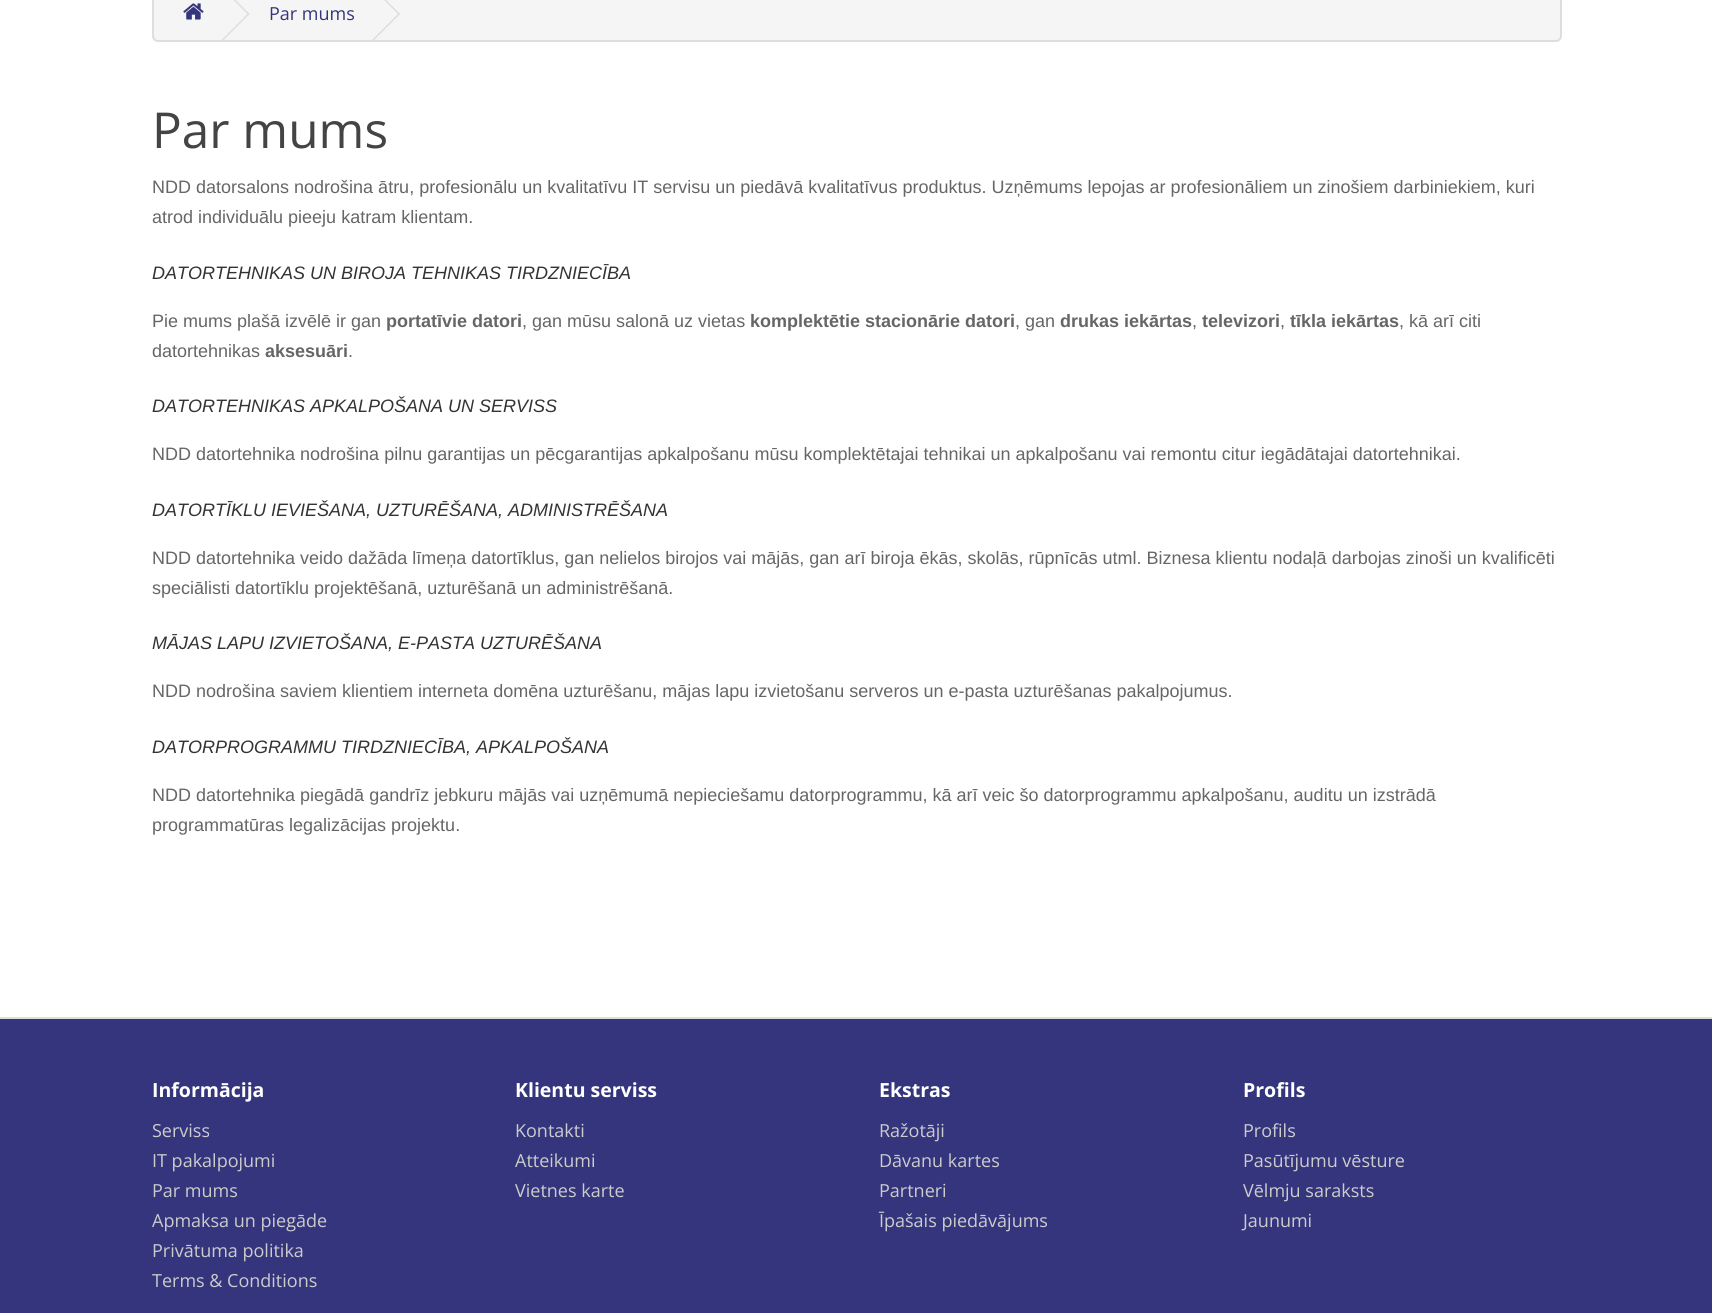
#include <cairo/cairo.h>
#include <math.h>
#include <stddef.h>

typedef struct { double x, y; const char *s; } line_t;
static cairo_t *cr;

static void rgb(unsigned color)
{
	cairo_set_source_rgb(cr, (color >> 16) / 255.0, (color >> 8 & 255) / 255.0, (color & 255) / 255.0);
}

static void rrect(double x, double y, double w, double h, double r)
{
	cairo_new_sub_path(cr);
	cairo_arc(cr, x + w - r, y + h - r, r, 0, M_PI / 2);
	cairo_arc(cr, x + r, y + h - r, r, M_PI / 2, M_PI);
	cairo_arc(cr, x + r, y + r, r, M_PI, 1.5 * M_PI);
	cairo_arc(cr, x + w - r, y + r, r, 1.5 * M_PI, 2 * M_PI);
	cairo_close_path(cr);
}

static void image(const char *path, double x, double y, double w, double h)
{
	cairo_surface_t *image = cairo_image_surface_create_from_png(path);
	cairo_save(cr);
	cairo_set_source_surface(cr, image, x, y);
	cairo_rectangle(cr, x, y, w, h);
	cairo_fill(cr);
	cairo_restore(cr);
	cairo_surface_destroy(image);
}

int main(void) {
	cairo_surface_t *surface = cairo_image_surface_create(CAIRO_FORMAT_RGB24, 1712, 1313);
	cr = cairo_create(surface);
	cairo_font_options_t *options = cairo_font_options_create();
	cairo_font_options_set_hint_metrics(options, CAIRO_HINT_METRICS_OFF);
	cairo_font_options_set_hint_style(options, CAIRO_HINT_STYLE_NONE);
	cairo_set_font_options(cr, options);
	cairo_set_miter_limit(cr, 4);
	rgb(0xffffff);
	cairo_paint(cr);
	rgb(0xf5f5f5);
	rrect(153, -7, 1408, 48, 5);
	cairo_fill_preserve(cr);
	rgb(0xdddddd);
	cairo_stroke(cr);
	image("img/1.png", 183, 3, 21, 17);
	cairo_new_path(cr);
	cairo_move_to(cr, 221, -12.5);
	cairo_line_to(cr, 222, -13.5);
	cairo_line_to(cr, 249.5, 14);
	cairo_line_to(cr, 248.5, 15);
	cairo_close_path(cr);
	cairo_fill(cr);
	cairo_new_path(cr);
	cairo_move_to(cr, 221, 40.5);
	cairo_line_to(cr, 248.5, 13);
	cairo_line_to(cr, 249.5, 14);
	cairo_line_to(cr, 222, 41.5);
	cairo_close_path(cr);
	cairo_fill(cr);
	cairo_new_path(cr);
	cairo_move_to(cr, 371.5, -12.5);
	cairo_line_to(cr, 372.5, -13.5);
	cairo_line_to(cr, 400, 14);
	cairo_line_to(cr, 399, 15);
	cairo_close_path(cr);
	cairo_fill(cr);
	cairo_new_path(cr);
	cairo_move_to(cr, 371.5, 40.5);
	cairo_line_to(cr, 399, 13);
	cairo_line_to(cr, 400, 14);
	cairo_line_to(cr, 372.5, 41.5);
	cairo_close_path(cr);
	cairo_fill(cr);
	rgb(0x35357d);
	cairo_rectangle(cr, 0, 1019, 1712, 294);
	cairo_fill(cr);
	rgb(0xdddddd);
	cairo_rectangle(cr, 0, 1017, 1712, 2);
	cairo_fill(cr);
	cairo_select_font_face(cr, "Open Sans", CAIRO_FONT_SLANT_NORMAL, CAIRO_FONT_WEIGHT_NORMAL);
	cairo_set_font_size(cr, 18);
	rgb(0x35357d);
	cairo_move_to(cr, 269, 20);
	cairo_show_text(cr, "Par mums");
	cairo_set_font_size(cr, 49.5);
	rgb(0x444444);
	cairo_move_to(cr, 152, 148);
	cairo_show_text(cr, "Par mums");
	cairo_select_font_face(cr, "Liberation Sans", CAIRO_FONT_SLANT_NORMAL, CAIRO_FONT_WEIGHT_NORMAL);
	cairo_set_font_size(cr, 18);
	rgb(0x666666);
	cairo_move_to(cr, 152, 193);
	cairo_show_text(cr, "NDD datorsalons nodrošina ātru, profesionālu un kvalitatīvu IT servisu un piedāvā kvalitatīvus produktus. Uzņēmums lepojas ar profesionāliem un zinošiem darbiniekiem, kuri");
	cairo_move_to(cr, 152, 223);
	cairo_show_text(cr, "atrod individuālu pieeju katram klientam.");
	cairo_select_font_face(cr, "Liberation Sans", CAIRO_FONT_SLANT_ITALIC, CAIRO_FONT_WEIGHT_NORMAL);
	rgb(0x333333);
	cairo_move_to(cr, 152, 279);
	cairo_show_text(cr, "DATORTEHNIKAS UN BIROJA TEHNIKAS TIRDZNIECĪBA");
	cairo_select_font_face(cr, "Liberation Sans", CAIRO_FONT_SLANT_NORMAL, CAIRO_FONT_WEIGHT_NORMAL);
	rgb(0x666666);
	cairo_move_to(cr, 152, 327);
	cairo_show_text(cr, "Pie mums plašā izvēlē ir gan");
	cairo_select_font_face(cr, "Liberation Sans", CAIRO_FONT_SLANT_NORMAL, CAIRO_FONT_WEIGHT_BOLD);
	cairo_move_to(cr, 386, 327);
	cairo_show_text(cr, "portatīvie datori");
	cairo_select_font_face(cr, "Liberation Sans", CAIRO_FONT_SLANT_NORMAL, CAIRO_FONT_WEIGHT_NORMAL);
	cairo_move_to(cr, 522, 327);
	cairo_show_text(cr, ", gan mūsu salonā uz vietas");
	cairo_select_font_face(cr, "Liberation Sans", CAIRO_FONT_SLANT_NORMAL, CAIRO_FONT_WEIGHT_BOLD);
	cairo_move_to(cr, 750, 327);
	cairo_show_text(cr, "komplektētie stacionārie datori");
	cairo_select_font_face(cr, "Liberation Sans", CAIRO_FONT_SLANT_NORMAL, CAIRO_FONT_WEIGHT_NORMAL);
	cairo_move_to(cr, 1015, 327);
	cairo_show_text(cr, ", gan");
	cairo_select_font_face(cr, "Liberation Sans", CAIRO_FONT_SLANT_NORMAL, CAIRO_FONT_WEIGHT_BOLD);
	cairo_move_to(cr, 1060, 327);
	cairo_show_text(cr, "drukas iekārtas");
	cairo_select_font_face(cr, "Liberation Sans", CAIRO_FONT_SLANT_NORMAL, CAIRO_FONT_WEIGHT_NORMAL);
	cairo_move_to(cr, 1192, 327);
	cairo_show_text(cr, ",");
	cairo_select_font_face(cr, "Liberation Sans", CAIRO_FONT_SLANT_NORMAL, CAIRO_FONT_WEIGHT_BOLD);
	cairo_move_to(cr, 1202, 327);
	cairo_show_text(cr, "televizori");
	cairo_select_font_face(cr, "Liberation Sans", CAIRO_FONT_SLANT_NORMAL, CAIRO_FONT_WEIGHT_NORMAL);
	cairo_move_to(cr, 1280, 327);
	cairo_show_text(cr, ",");
	cairo_select_font_face(cr, "Liberation Sans", CAIRO_FONT_SLANT_NORMAL, CAIRO_FONT_WEIGHT_BOLD);
	cairo_move_to(cr, 1290, 327);
	cairo_show_text(cr, "tīkla iekārtas");
	cairo_select_font_face(cr, "Liberation Sans", CAIRO_FONT_SLANT_NORMAL, CAIRO_FONT_WEIGHT_NORMAL);
	cairo_move_to(cr, 1399, 327);
	cairo_show_text(cr, ", kā arī citi");
	cairo_move_to(cr, 152, 357);
	cairo_show_text(cr, "datortehnikas");
	cairo_select_font_face(cr, "Liberation Sans", CAIRO_FONT_SLANT_NORMAL, CAIRO_FONT_WEIGHT_BOLD);
	cairo_move_to(cr, 265, 357);
	cairo_show_text(cr, "aksesuāri");
	cairo_select_font_face(cr, "Liberation Sans", CAIRO_FONT_SLANT_NORMAL, CAIRO_FONT_WEIGHT_NORMAL);
	cairo_move_to(cr, 348, 357);
	cairo_show_text(cr, ".");
	cairo_select_font_face(cr, "Liberation Sans", CAIRO_FONT_SLANT_ITALIC, CAIRO_FONT_WEIGHT_NORMAL);
	rgb(0x333333);
	cairo_move_to(cr, 152, 412);
	cairo_show_text(cr, "DATORTEHNIKAS APKALPOŠANA UN SERVISS");
	cairo_select_font_face(cr, "Liberation Sans", CAIRO_FONT_SLANT_NORMAL, CAIRO_FONT_WEIGHT_NORMAL);
	rgb(0x666666);
	cairo_move_to(cr, 152, 460);
	cairo_show_text(cr, "NDD datortehnika nodrošina pilnu garantijas un pēcgarantijas apkalpošanu mūsu komplektētajai tehnikai un apkalpošanu vai remontu citur iegādātajai datortehnikai.");
	cairo_select_font_face(cr, "Liberation Sans", CAIRO_FONT_SLANT_ITALIC, CAIRO_FONT_WEIGHT_NORMAL);
	rgb(0x333333);
	cairo_move_to(cr, 152, 516);
	cairo_show_text(cr, "DATORTĪKLU IEVIEŠANA, UZTURĒŠANA, ADMINISTRĒŠANA");
	cairo_select_font_face(cr, "Liberation Sans", CAIRO_FONT_SLANT_NORMAL, CAIRO_FONT_WEIGHT_NORMAL);
	rgb(0x666666);
	cairo_move_to(cr, 152, 564);
	cairo_show_text(cr, "NDD datortehnika veido dažāda līmeņa datortīklus, gan nelielos birojos vai mājās, gan arī biroja ēkās, skolās, rūpnīcās utml. Biznesa klientu nodaļā darbojas zinoši un kvalificēti");
	cairo_move_to(cr, 152, 594);
	cairo_show_text(cr, "speciālisti datortīklu projektēšanā, uzturēšanā un administrēšanā.");
	cairo_select_font_face(cr, "Liberation Sans", CAIRO_FONT_SLANT_ITALIC, CAIRO_FONT_WEIGHT_NORMAL);
	rgb(0x333333);
	cairo_move_to(cr, 152, 649);
	cairo_show_text(cr, "MĀJAS LAPU IZVIETOŠANA, E-PASTA UZTURĒŠANA");
	cairo_select_font_face(cr, "Liberation Sans", CAIRO_FONT_SLANT_NORMAL, CAIRO_FONT_WEIGHT_NORMAL);
	rgb(0x666666);
	cairo_move_to(cr, 152, 697);
	cairo_show_text(cr, "NDD nodrošina saviem klientiem interneta domēna uzturēšanu, mājas lapu izvietošanu serveros un e-pasta uzturēšanas pakalpojumus.");
	cairo_select_font_face(cr, "Liberation Sans", CAIRO_FONT_SLANT_ITALIC, CAIRO_FONT_WEIGHT_NORMAL);
	rgb(0x333333);
	cairo_move_to(cr, 152, 753);
	cairo_show_text(cr, "DATORPROGRAMMU TIRDZNIECĪBA, APKALPOŠANA");
	cairo_select_font_face(cr, "Liberation Sans", CAIRO_FONT_SLANT_NORMAL, CAIRO_FONT_WEIGHT_NORMAL);
	rgb(0x666666);
	cairo_move_to(cr, 152, 801);
	cairo_show_text(cr, "NDD datortehnika piegādā gandrīz jebkuru mājās vai uzņēmumā nepieciešamu datorprogrammu, kā arī veic šo datorprogrammu apkalpošanu, auditu un izstrādā");
	cairo_move_to(cr, 152, 831);
	cairo_show_text(cr, "programmatūras legalizācijas projektu.");
	cairo_select_font_face(cr, "Open Sans", CAIRO_FONT_SLANT_NORMAL, CAIRO_FONT_WEIGHT_BOLD);
	cairo_set_font_size(cr, 19.5);
	rgb(0xffffff);
	cairo_move_to(cr, 152, 1097);
	cairo_show_text(cr, "Informācija");
	cairo_select_font_face(cr, "Open Sans", CAIRO_FONT_SLANT_NORMAL, CAIRO_FONT_WEIGHT_NORMAL);
	cairo_set_font_size(cr, 18);
	rgb(0xcccccc);
	{
		static const line_t items[] = {
			{152, 1137, "Serviss"},
			{152, 1167, "IT pakalpojumi"},
			{152, 1197, "Par mums"},
			{152, 1227, "Apmaksa un piegāde"},
			{152, 1257, "Privātuma politika"},
			{152, 1287, "Terms & Conditions"},
		};
		for (size_t i = 0; i < sizeof items / sizeof *items; i++) {
			cairo_move_to(cr, items[i].x, items[i].y);
			cairo_show_text(cr, items[i].s);
		}
	}
	cairo_select_font_face(cr, "Open Sans", CAIRO_FONT_SLANT_NORMAL, CAIRO_FONT_WEIGHT_BOLD);
	cairo_set_font_size(cr, 19.5);
	rgb(0xffffff);
	cairo_move_to(cr, 515, 1097);
	cairo_show_text(cr, "Klientu serviss");
	cairo_select_font_face(cr, "Open Sans", CAIRO_FONT_SLANT_NORMAL, CAIRO_FONT_WEIGHT_NORMAL);
	cairo_set_font_size(cr, 18);
	rgb(0xcccccc);
	{
		static const line_t items[] = {
			{515, 1137, "Kontakti"},
			{515, 1167, "Atteikumi"},
			{515, 1197, "Vietnes karte"},
		};
		for (size_t i = 0; i < sizeof items / sizeof *items; i++) {
			cairo_move_to(cr, items[i].x, items[i].y);
			cairo_show_text(cr, items[i].s);
		}
	}
	cairo_select_font_face(cr, "Open Sans", CAIRO_FONT_SLANT_NORMAL, CAIRO_FONT_WEIGHT_BOLD);
	cairo_set_font_size(cr, 19.5);
	rgb(0xffffff);
	cairo_move_to(cr, 879, 1097);
	cairo_show_text(cr, "Ekstras");
	cairo_select_font_face(cr, "Open Sans", CAIRO_FONT_SLANT_NORMAL, CAIRO_FONT_WEIGHT_NORMAL);
	cairo_set_font_size(cr, 18);
	rgb(0xcccccc);
	{
		static const line_t items[] = {
			{879, 1137, "Ražotāji"},
			{879, 1167, "Dāvanu kartes"},
			{879, 1197, "Partneri"},
			{879, 1227, "Īpašais piedāvājums"},
		};
		for (size_t i = 0; i < sizeof items / sizeof *items; i++) {
			cairo_move_to(cr, items[i].x, items[i].y);
			cairo_show_text(cr, items[i].s);
		}
	}
	cairo_select_font_face(cr, "Open Sans", CAIRO_FONT_SLANT_NORMAL, CAIRO_FONT_WEIGHT_BOLD);
	cairo_set_font_size(cr, 19.5);
	rgb(0xffffff);
	cairo_move_to(cr, 1243, 1097);
	cairo_show_text(cr, "Profils");
	cairo_select_font_face(cr, "Open Sans", CAIRO_FONT_SLANT_NORMAL, CAIRO_FONT_WEIGHT_NORMAL);
	cairo_set_font_size(cr, 18);
	rgb(0xcccccc);
	{
		static const line_t items[] = {
			{1243, 1137, "Profils"},
			{1243, 1167, "Pasūtījumu vēsture"},
			{1243, 1197, "Vēlmju saraksts"},
			{1243, 1227, "Jaunumi"},
		};
		for (size_t i = 0; i < sizeof items / sizeof *items; i++) {
			cairo_move_to(cr, items[i].x, items[i].y);
			cairo_show_text(cr, items[i].s);
		}
	}
	cairo_surface_write_to_png(surface, "page.png");
	cairo_font_options_destroy(options);
	cairo_destroy(cr);
	cairo_surface_destroy(surface);
	return 0;
}
